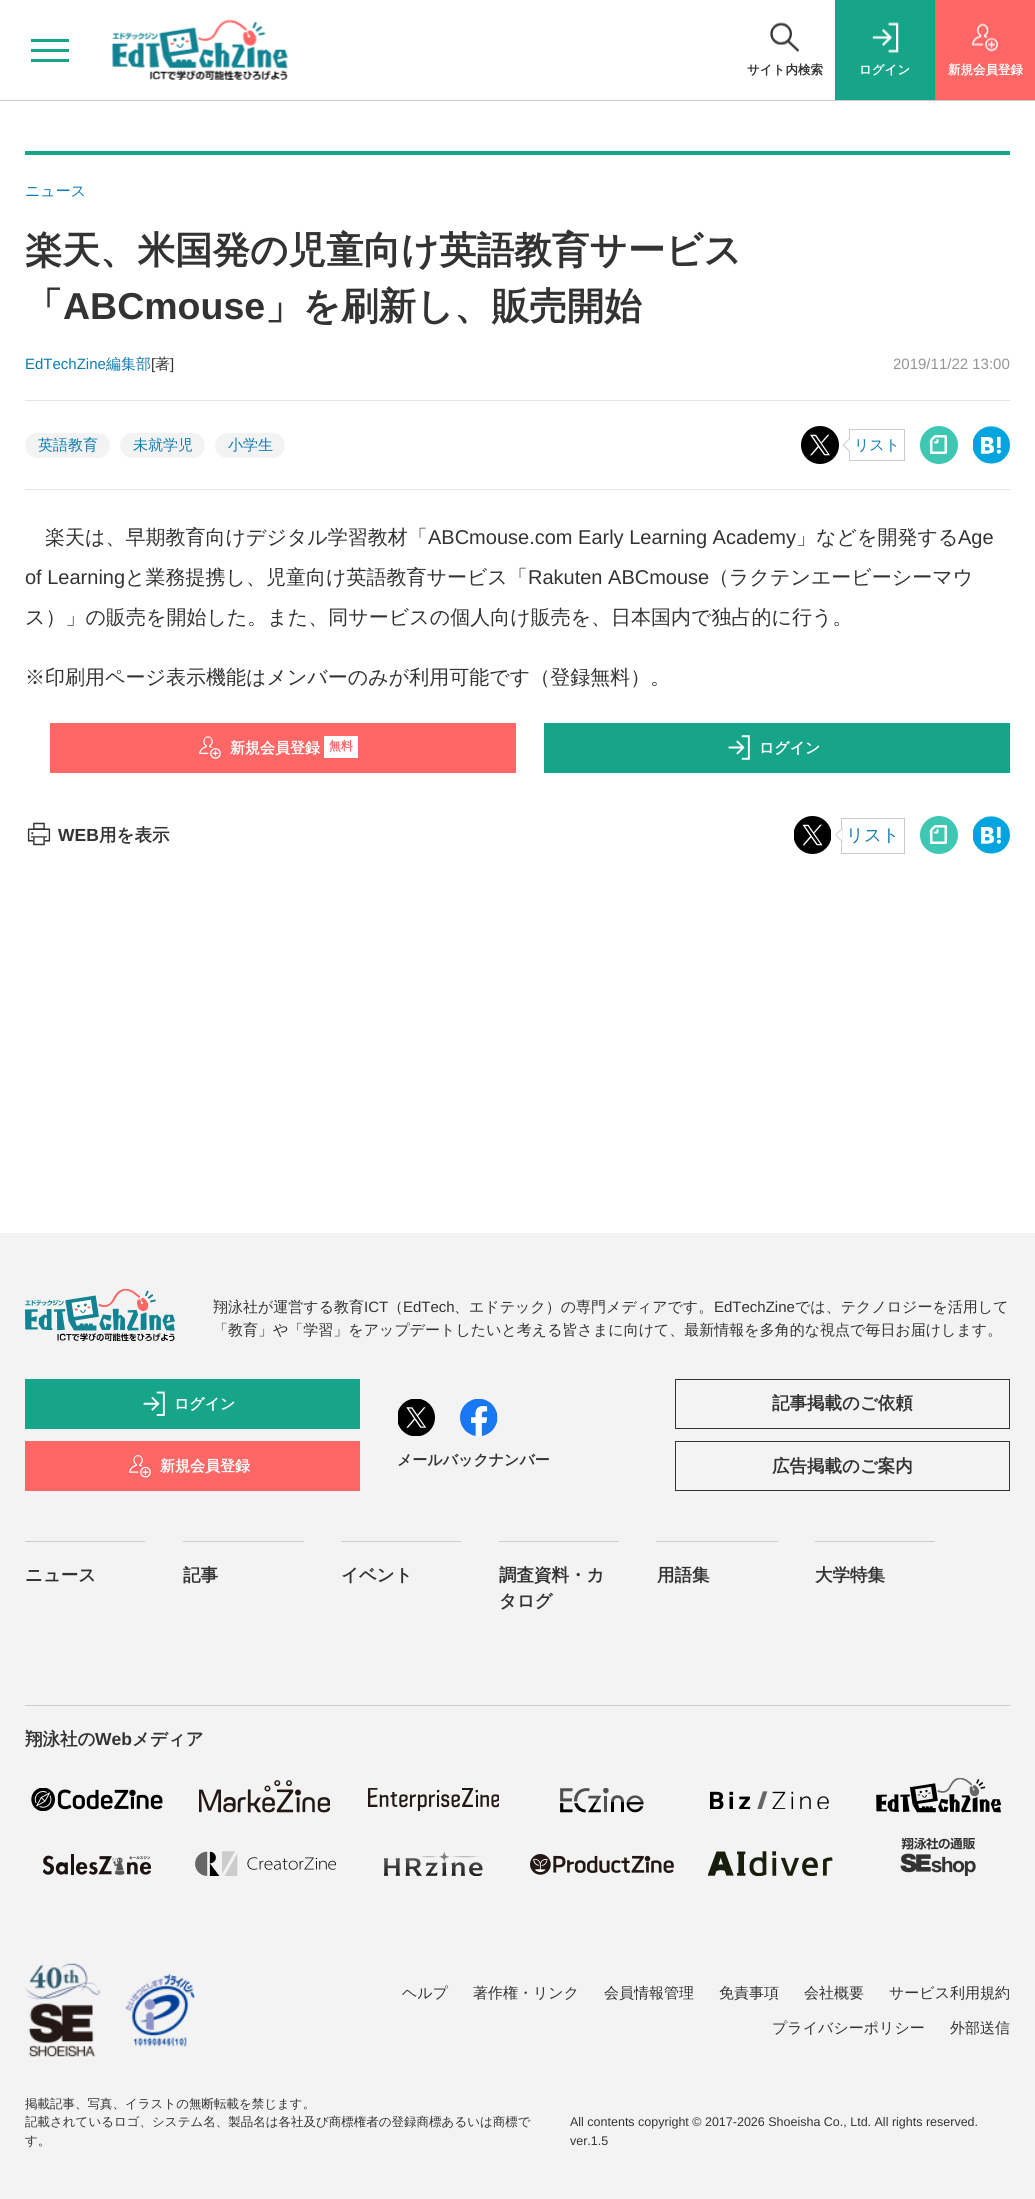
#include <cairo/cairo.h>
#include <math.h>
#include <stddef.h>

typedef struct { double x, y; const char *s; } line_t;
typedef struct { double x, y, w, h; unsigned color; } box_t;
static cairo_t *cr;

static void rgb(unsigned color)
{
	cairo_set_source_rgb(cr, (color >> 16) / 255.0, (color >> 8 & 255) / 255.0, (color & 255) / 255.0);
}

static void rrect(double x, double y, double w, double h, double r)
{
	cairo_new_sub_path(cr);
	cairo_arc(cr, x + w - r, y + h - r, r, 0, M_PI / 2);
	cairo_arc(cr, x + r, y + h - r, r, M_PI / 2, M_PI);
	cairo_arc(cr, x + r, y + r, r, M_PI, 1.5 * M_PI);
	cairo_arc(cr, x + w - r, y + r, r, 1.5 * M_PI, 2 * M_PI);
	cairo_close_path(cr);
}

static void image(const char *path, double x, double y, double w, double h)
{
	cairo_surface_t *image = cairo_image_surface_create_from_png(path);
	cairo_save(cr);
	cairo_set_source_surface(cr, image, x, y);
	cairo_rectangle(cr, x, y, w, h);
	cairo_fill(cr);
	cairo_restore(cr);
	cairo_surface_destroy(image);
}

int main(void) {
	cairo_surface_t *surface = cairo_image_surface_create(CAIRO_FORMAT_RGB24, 1035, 2199);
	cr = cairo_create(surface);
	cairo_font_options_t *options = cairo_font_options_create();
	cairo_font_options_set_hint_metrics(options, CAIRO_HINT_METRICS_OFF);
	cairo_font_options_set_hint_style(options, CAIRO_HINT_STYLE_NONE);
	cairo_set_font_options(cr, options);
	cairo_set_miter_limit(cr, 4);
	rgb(0xffffff);
	cairo_paint(cr);
	{
		static const box_t items[] = {
			{0, 100, 1035, 1, 0xcccccc},
			{31, 49, 38, 3, 0x16a588},
			{31, 39, 38, 3, 0x16a588},
			{31, 59, 38, 3, 0x16a588},
		};
		for (size_t i = 0; i < sizeof items / sizeof *items; i++) {
			rgb(items[i].color);
			cairo_rectangle(cr, items[i].x, items[i].y, items[i].w, items[i].h);
			cairo_fill(cr);
		}
	}
	image("img/1.png", 112, 19, 176, 61);
	image("img/2.png", 770, 22, 30, 31);
	cairo_rectangle(cr, 835, 0, 100, 100);
	cairo_fill(cr);
	image("img/3.png", 872, 22, 27, 31);
	rgb(0xff6666);
	cairo_rectangle(cr, 935, 0, 100, 100);
	cairo_fill(cr);
	image("img/4.png", 972, 23, 26, 29);
	{
		static const box_t items[] = {
			{25, 151, 985, 4, 0x16a588},
			{25, 489, 985, 1, 0xe5e5e5},
			{25, 400, 985, 1, 0xe5e5e5},
		};
		for (size_t i = 0; i < sizeof items / sizeof *items; i++) {
			rgb(items[i].color);
			cairo_rectangle(cr, items[i].x, items[i].y, items[i].w, items[i].h);
			cairo_fill(cr);
		}
	}
	rgb(0xf3f3f3);
	rrect(25, 433, 85, 25, 12.5);
	cairo_fill(cr);
	rrect(120, 433, 85, 25, 12.5);
	cairo_fill(cr);
	rrect(215, 433, 70, 25, 12.5);
	cairo_fill(cr);
	image("img/5.png", 801, 426, 38, 38);
	cairo_rectangle(cr, 849.5, 429.5, 55, 31);
	rgb(0xcccccc);
	cairo_set_line_width(cr, 1);
	cairo_stroke(cr);
	cairo_new_path(cr);
	cairo_move_to(cr, 850, 437.5);
	cairo_line_to(cr, 850, 452.5);
	cairo_line_to(cr, 842.5, 445);
	cairo_close_path(cr);
	cairo_fill(cr);
	rgb(0xffffff);
	cairo_new_path(cr);
	cairo_move_to(cr, 850, 439);
	cairo_line_to(cr, 850, 451);
	cairo_line_to(cr, 844, 445);
	cairo_close_path(cr);
	cairo_fill(cr);
	rgb(0x3ec8b3);
	cairo_arc(cr, 939, 445, 19, 0, 2 * M_PI);
	cairo_fill(cr);
	rgb(0xffffff);
	cairo_set_fill_rule(cr, CAIRO_FILL_RULE_EVEN_ODD);
	cairo_new_path(cr);
	cairo_move_to(cr, 931.5, 454);
	cairo_line_to(cr, 943, 454);
	cairo_curve_to(cr, 947.5, 454, 947, 454, 947, 450);
	cairo_line_to(cr, 947, 439);
	cairo_curve_to(cr, 947, 435.5, 947.5, 435, 944, 435);
	cairo_line_to(cr, 935.5, 435);
	cairo_curve_to(cr, 934.5, 435, 934, 436, 933, 436.5);
	cairo_curve_to(cr, 928.5, 441, 930, 440, 930, 446.5);
	cairo_line_to(cr, 930, 451);
	cairo_curve_to(cr, 930, 452, 929.5, 454, 931.5, 454);
	cairo_close_path(cr);
	cairo_move_to(cr, 935.5, 437.5);
	cairo_line_to(cr, 944.5, 437.5);
	cairo_line_to(cr, 944.5, 451.5);
	cairo_line_to(cr, 932.5, 451.5);
	cairo_line_to(cr, 932.5, 440.5);
	cairo_close_path(cr);
	cairo_move_to(cr, 935, 443.5);
	cairo_curve_to(cr, 937.5, 443.5, 938.5, 444, 938.5, 441);
	cairo_curve_to(cr, 938.5, 440.5, 938.5, 438.5, 937.5, 439);
	cairo_line_to(cr, 936.5, 439.5);
	cairo_line_to(cr, 936.5, 441.5);
	cairo_line_to(cr, 934.5, 441.5);
	cairo_curve_to(cr, 933.5, 442, 934, 443.5, 935, 443.5);
	cairo_close_path(cr);
	cairo_fill(cr);
	image("img/6.png", 973, 426, 37, 38);
	rgb(0xff6666);
	cairo_rectangle(cr, 50, 723, 466, 50);
	cairo_fill(cr);
	image("img/7.png", 199, 736, 22, 23);
	rgb(0xffffff);
	cairo_rectangle(cr, 324, 736, 34, 22);
	cairo_fill(cr);
	rgb(0x16a588);
	cairo_rectangle(cr, 544, 723, 466, 50);
	cairo_fill(cr);
	image("img/8.png", 728, 735, 22, 25);
	image("img/9.png", 27, 822, 24, 24);
	image("img/10.png", 794, 816, 37, 38);
	cairo_rectangle(cr, 841.5, 818.5, 63, 35);
	rgb(0xcccccc);
	cairo_stroke(cr);
	cairo_set_fill_rule(cr, CAIRO_FILL_RULE_WINDING);
	cairo_new_path(cr);
	cairo_move_to(cr, 842.5, 827.5);
	cairo_line_to(cr, 842.5, 842.5);
	cairo_line_to(cr, 835, 835);
	cairo_close_path(cr);
	cairo_fill(cr);
	rgb(0xffffff);
	cairo_new_path(cr);
	cairo_move_to(cr, 842.5, 829);
	cairo_line_to(cr, 842.5, 841);
	cairo_line_to(cr, 836, 835);
	cairo_close_path(cr);
	cairo_fill(cr);
	rgb(0x3ec8b3);
	cairo_arc(cr, 939, 835, 19, 0, 2 * M_PI);
	cairo_fill(cr);
	rgb(0xffffff);
	cairo_set_fill_rule(cr, CAIRO_FILL_RULE_EVEN_ODD);
	cairo_new_path(cr);
	cairo_move_to(cr, 931.5, 844);
	cairo_line_to(cr, 943, 844);
	cairo_curve_to(cr, 947.5, 844, 947, 844, 947, 840);
	cairo_line_to(cr, 947, 829);
	cairo_curve_to(cr, 947, 825.5, 947.5, 825, 944, 825);
	cairo_line_to(cr, 935.5, 825);
	cairo_curve_to(cr, 934.5, 825, 934, 826, 933, 826.5);
	cairo_curve_to(cr, 928.5, 831, 930, 830, 930, 836.5);
	cairo_line_to(cr, 930, 841);
	cairo_curve_to(cr, 930, 842, 929.5, 844, 931.5, 844);
	cairo_close_path(cr);
	cairo_move_to(cr, 935.5, 827.5);
	cairo_line_to(cr, 944.5, 827.5);
	cairo_line_to(cr, 944.5, 841.5);
	cairo_line_to(cr, 932.5, 841.5);
	cairo_line_to(cr, 932.5, 830.5);
	cairo_close_path(cr);
	cairo_move_to(cr, 935, 833.5);
	cairo_curve_to(cr, 937.5, 833.5, 938.5, 834, 938.5, 831);
	cairo_curve_to(cr, 938.5, 830.5, 938.5, 828.5, 937.5, 829);
	cairo_line_to(cr, 936.5, 829.5);
	cairo_line_to(cr, 936.5, 831.5);
	cairo_line_to(cr, 934.5, 831.5);
	cairo_curve_to(cr, 933.5, 832, 934, 833.5, 935, 833.5);
	cairo_close_path(cr);
	cairo_fill(cr);
	image("img/6.png", 973, 816, 37, 38);
	rgb(0xf3f3f3);
	cairo_rectangle(cr, 0, 1233, 1035, 966);
	cairo_fill(cr);
	image("img/11.png", 25, 1289, 150, 52);
	rgb(0x16a588);
	cairo_rectangle(cr, 25, 1379, 335, 50);
	cairo_fill(cr);
	image("img/12.png", 143, 1391, 22, 25);
	rgb(0xff6666);
	cairo_rectangle(cr, 25, 1441, 335, 50);
	cairo_fill(cr);
	image("img/13.png", 129, 1455, 22, 23);
	image("img/14.png", 398, 1399, 37, 37);
	image("img/15.png", 460, 1399, 38, 37);
	cairo_rectangle(cr, 675.5, 1379.5, 334, 49);
	rgb(0x333333);
	cairo_stroke(cr);
	cairo_rectangle(cr, 675.5, 1441.5, 334, 49);
	cairo_stroke(cr);
	{
		static const box_t items[] = {
			{25, 1541, 120, 1, 0xcccccc},
			{183, 1541, 121, 1, 0xcccccc},
			{341, 1541, 120, 1, 0xcccccc},
			{499, 1541, 120, 1, 0xcccccc},
			{656, 1541, 122, 1, 0xcccccc},
			{815, 1541, 120, 1, 0xcccccc},
			{25, 1705, 985, 1, 0xcccccc},
		};
		for (size_t i = 0; i < sizeof items / sizeof *items; i++) {
			rgb(items[i].color);
			cairo_rectangle(cr, items[i].x, items[i].y, items[i].w, items[i].h);
			cairo_fill(cr);
		}
	}
	image("img/16.png", 31, 1788, 132, 23);
	image("img/17.png", 199, 1780, 131, 33);
	image("img/18.png", 368, 1788, 131, 23);
	image("img/19.png", 560, 1788, 84, 25);
	image("img/20.png", 710, 1791, 119, 18);
	image("img/21.png", 876, 1778, 125, 35);
	image("img/22.png", 43, 1854, 108, 21);
	image("img/23.png", 195, 1851, 141, 25);
	image("img/24.png", 384, 1851, 99, 25);
	image("img/25.png", 530, 1854, 144, 21);
	image("img/26.png", 708, 1851, 125, 25);
	image("img/27.png", 900, 1838, 76, 38);
	image("img/28.png", 25, 1963, 75, 94);
	image("img/29.png", 125, 1973, 71, 74);
	cairo_select_font_face(cr, "WenQuanYi Zen Hei", CAIRO_FONT_SLANT_NORMAL, CAIRO_FONT_WEIGHT_BOLD);
	cairo_set_font_size(cr, 12.5);
	rgb(0x333333);
	cairo_move_to(cr, 747, 74);
	cairo_show_text(cr, "サイト内検索");
	rgb(0xffffff);
	cairo_move_to(cr, 859, 74);
	cairo_show_text(cr, "ログイン");
	cairo_move_to(cr, 948, 74);
	cairo_show_text(cr, "新規会員登録");
	cairo_select_font_face(cr, "WenQuanYi Zen Hei Medium", CAIRO_FONT_SLANT_NORMAL, CAIRO_FONT_WEIGHT_NORMAL);
	cairo_set_font_size(cr, 15);
	rgb(0x0e7bb3);
	cairo_move_to(cr, 25, 196);
	cairo_show_text(cr, "ニュース");
	cairo_select_font_face(cr, "WenQuanYi Zen Hei", CAIRO_FONT_SLANT_NORMAL, CAIRO_FONT_WEIGHT_BOLD);
	cairo_set_font_size(cr, 37.5);
	rgb(0x333333);
	cairo_move_to(cr, 25, 263);
	cairo_show_text(cr, "楽天、米国発の児童向け英語教育サービス");
	cairo_move_to(cr, 25, 319);
	cairo_show_text(cr, "「");
	cairo_select_font_face(cr, "Liberation Sans", CAIRO_FONT_SLANT_NORMAL, CAIRO_FONT_WEIGHT_BOLD);
	cairo_move_to(cr, 63, 319);
	cairo_show_text(cr, "ABCmouse");
	cairo_select_font_face(cr, "WenQuanYi Zen Hei", CAIRO_FONT_SLANT_NORMAL, CAIRO_FONT_WEIGHT_BOLD);
	cairo_move_to(cr, 265, 319);
	cairo_show_text(cr, "」を刷新し、販売開始");
	cairo_select_font_face(cr, "Liberation Sans", CAIRO_FONT_SLANT_NORMAL, CAIRO_FONT_WEIGHT_NORMAL);
	cairo_set_font_size(cr, 15);
	rgb(0x0e7bb3);
	cairo_move_to(cr, 25, 369);
	cairo_show_text(cr, "EdTechZine");
	cairo_select_font_face(cr, "WenQuanYi Zen Hei Medium", CAIRO_FONT_SLANT_NORMAL, CAIRO_FONT_WEIGHT_NORMAL);
	cairo_move_to(cr, 106, 369);
	cairo_show_text(cr, "編集部");
	cairo_select_font_face(cr, "Liberation Sans", CAIRO_FONT_SLANT_NORMAL, CAIRO_FONT_WEIGHT_NORMAL);
	rgb(0x333333);
	cairo_move_to(cr, 151, 369);
	cairo_show_text(cr, "[");
	cairo_select_font_face(cr, "WenQuanYi Zen Hei Medium", CAIRO_FONT_SLANT_NORMAL, CAIRO_FONT_WEIGHT_NORMAL);
	cairo_move_to(cr, 155, 369);
	cairo_show_text(cr, "著");
	cairo_select_font_face(cr, "Liberation Sans", CAIRO_FONT_SLANT_NORMAL, CAIRO_FONT_WEIGHT_NORMAL);
	cairo_move_to(cr, 170, 369);
	cairo_show_text(cr, "]");
	rgb(0x959595);
	cairo_move_to(cr, 893, 369);
	cairo_show_text(cr, "2019/11/22 13:00");
	cairo_select_font_face(cr, "WenQuanYi Zen Hei Medium", CAIRO_FONT_SLANT_NORMAL, CAIRO_FONT_WEIGHT_NORMAL);
	rgb(0x0e7bb3);
	{
		static const line_t items[] = {
			{38, 450, "英語教育"},
			{133, 450, "未就学児"},
			{228, 450, "小学生"},
			{854, 450, "リスト"},
		};
		for (size_t i = 0; i < sizeof items / sizeof *items; i++) {
			cairo_move_to(cr, items[i].x, items[i].y);
			cairo_show_text(cr, items[i].s);
		}
	}
	cairo_set_font_size(cr, 20);
	rgb(0x333333);
	cairo_move_to(cr, 45, 544);
	cairo_show_text(cr, "楽天は、早期教育向けデジタル学習教材「");
	cairo_select_font_face(cr, "Liberation Sans", CAIRO_FONT_SLANT_NORMAL, CAIRO_FONT_WEIGHT_NORMAL);
	cairo_move_to(cr, 428, 544);
	cairo_show_text(cr, "ABCmouse.com Early Learning Academy");
	cairo_select_font_face(cr, "WenQuanYi Zen Hei Medium", CAIRO_FONT_SLANT_NORMAL, CAIRO_FONT_WEIGHT_NORMAL);
	cairo_move_to(cr, 796, 544);
	cairo_show_text(cr, "」などを開発する");
	cairo_select_font_face(cr, "Liberation Sans", CAIRO_FONT_SLANT_NORMAL, CAIRO_FONT_WEIGHT_NORMAL);
	cairo_move_to(cr, 958, 544);
	cairo_show_text(cr, "Age");
	cairo_move_to(cr, 25, 584);
	cairo_show_text(cr, "of Learning");
	cairo_select_font_face(cr, "WenQuanYi Zen Hei Medium", CAIRO_FONT_SLANT_NORMAL, CAIRO_FONT_WEIGHT_NORMAL);
	cairo_move_to(cr, 125, 584);
	cairo_show_text(cr, "と業務提携し、児童向け英語教育サービス「");
	cairo_select_font_face(cr, "Liberation Sans", CAIRO_FONT_SLANT_NORMAL, CAIRO_FONT_WEIGHT_NORMAL);
	cairo_move_to(cr, 528, 584);
	cairo_show_text(cr, "Rakuten ABCmouse");
	cairo_select_font_face(cr, "WenQuanYi Zen Hei Medium", CAIRO_FONT_SLANT_NORMAL, CAIRO_FONT_WEIGHT_NORMAL);
	{
		static const line_t items[] = {
			{709, 584, "（ラクテンエービーシーマウ"},
			{25, 624, "ス）」の販売を開始した。また、同サービスの個人向け販売を、日本国内で独占的に行う。"},
			{25, 684, "※印刷用ページ表示機能はメンバーのみが利用可能です（登録無料）。"},
		};
		for (size_t i = 0; i < sizeof items / sizeof *items; i++) {
			cairo_move_to(cr, items[i].x, items[i].y);
			cairo_show_text(cr, items[i].s);
		}
	}
	cairo_select_font_face(cr, "WenQuanYi Zen Hei", CAIRO_FONT_SLANT_NORMAL, CAIRO_FONT_WEIGHT_BOLD);
	cairo_set_font_size(cr, 15);
	rgb(0xffffff);
	cairo_move_to(cr, 230, 753);
	cairo_show_text(cr, "新規会員登録");
	cairo_set_font_size(cr, 12);
	rgb(0xff6666);
	cairo_move_to(cr, 329, 750);
	cairo_show_text(cr, "無料");
	cairo_set_font_size(cr, 15);
	rgb(0xffffff);
	cairo_move_to(cr, 759, 753);
	cairo_show_text(cr, "ログイン");
	cairo_select_font_face(cr, "Liberation Sans", CAIRO_FONT_SLANT_NORMAL, CAIRO_FONT_WEIGHT_BOLD);
	cairo_set_font_size(cr, 17.5);
	rgb(0x333333);
	cairo_move_to(cr, 58, 841);
	cairo_show_text(cr, "WEB");
	cairo_select_font_face(cr, "WenQuanYi Zen Hei", CAIRO_FONT_SLANT_NORMAL, CAIRO_FONT_WEIGHT_BOLD);
	cairo_move_to(cr, 99, 841);
	cairo_show_text(cr, "用を表示");
	cairo_select_font_face(cr, "WenQuanYi Zen Hei Medium", CAIRO_FONT_SLANT_NORMAL, CAIRO_FONT_WEIGHT_NORMAL);
	rgb(0x0e7bb3);
	cairo_move_to(cr, 846, 841);
	cairo_show_text(cr, "リスト");
	cairo_set_font_size(cr, 15);
	rgb(0x333333);
	cairo_move_to(cr, 213, 1312);
	cairo_show_text(cr, "翔泳社が運営する教育");
	cairo_select_font_face(cr, "Liberation Sans", CAIRO_FONT_SLANT_NORMAL, CAIRO_FONT_WEIGHT_NORMAL);
	cairo_move_to(cr, 364, 1312);
	cairo_show_text(cr, "ICT");
	cairo_select_font_face(cr, "WenQuanYi Zen Hei Medium", CAIRO_FONT_SLANT_NORMAL, CAIRO_FONT_WEIGHT_NORMAL);
	cairo_move_to(cr, 388, 1312);
	cairo_show_text(cr, "（");
	cairo_select_font_face(cr, "Liberation Sans", CAIRO_FONT_SLANT_NORMAL, CAIRO_FONT_WEIGHT_NORMAL);
	cairo_move_to(cr, 403, 1312);
	cairo_show_text(cr, "EdTech");
	cairo_select_font_face(cr, "WenQuanYi Zen Hei Medium", CAIRO_FONT_SLANT_NORMAL, CAIRO_FONT_WEIGHT_NORMAL);
	cairo_move_to(cr, 454, 1312);
	cairo_show_text(cr, "、エドテック）の専門メディアです。");
	cairo_select_font_face(cr, "Liberation Sans", CAIRO_FONT_SLANT_NORMAL, CAIRO_FONT_WEIGHT_NORMAL);
	cairo_move_to(cr, 714, 1312);
	cairo_show_text(cr, "EdTechZine");
	cairo_select_font_face(cr, "WenQuanYi Zen Hei Medium", CAIRO_FONT_SLANT_NORMAL, CAIRO_FONT_WEIGHT_NORMAL);
	cairo_move_to(cr, 795, 1312);
	cairo_show_text(cr, "では、テクノロジーを活用して");
	cairo_move_to(cr, 213, 1335);
	cairo_show_text(cr, "「教育」や「学習」をアップデートしたいと考える皆さまに向けて、最新情報を多角的な視点で毎日お届けします。");
	cairo_select_font_face(cr, "WenQuanYi Zen Hei", CAIRO_FONT_SLANT_NORMAL, CAIRO_FONT_WEIGHT_BOLD);
	rgb(0xffffff);
	cairo_move_to(cr, 174, 1409);
	cairo_show_text(cr, "ログイン");
	cairo_move_to(cr, 160, 1471);
	cairo_show_text(cr, "新規会員登録");
	rgb(0x333333);
	cairo_move_to(cr, 397, 1465);
	cairo_show_text(cr, "メールバックナンバー");
	cairo_set_font_size(cr, 17.5);
	{
		static const line_t items[] = {
			{772, 1409, "記事掲載のご依頼"},
			{772, 1472, "広告掲載のご案内"},
			{25, 1581, "ニュース"},
			{183, 1581, "記事"},
			{341, 1581, "イベント"},
			{499, 1581, "調査資料・カ"},
			{499, 1607, "タログ"},
			{657, 1581, "用語集"},
			{815, 1581, "大学特集"},
			{25, 1745, "翔泳社の"},
		};
		for (size_t i = 0; i < sizeof items / sizeof *items; i++) {
			cairo_move_to(cr, items[i].x, items[i].y);
			cairo_show_text(cr, items[i].s);
		}
	}
	cairo_select_font_face(cr, "Liberation Sans", CAIRO_FONT_SLANT_NORMAL, CAIRO_FONT_WEIGHT_BOLD);
	cairo_move_to(cr, 95, 1745);
	cairo_show_text(cr, "Web");
	cairo_select_font_face(cr, "WenQuanYi Zen Hei", CAIRO_FONT_SLANT_NORMAL, CAIRO_FONT_WEIGHT_BOLD);
	cairo_move_to(cr, 132, 1745);
	cairo_show_text(cr, "メディア");
	cairo_select_font_face(cr, "WenQuanYi Zen Hei Medium", CAIRO_FONT_SLANT_NORMAL, CAIRO_FONT_WEIGHT_NORMAL);
	cairo_set_font_size(cr, 15);
	{
		static const line_t items[] = {
			{402, 1998, "ヘルプ"},
			{473, 1998, "著作権・リンク"},
			{604, 1998, "会員情報管理"},
			{719, 1998, "免責事項"},
			{804, 1998, "会社概要"},
			{889, 1998, "サービス利用規約"},
			{772, 2033, "プライバシーポリシー"},
			{950, 2033, "外部送信"},
		};
		for (size_t i = 0; i < sizeof items / sizeof *items; i++) {
			cairo_move_to(cr, items[i].x, items[i].y);
			cairo_show_text(cr, items[i].s);
		}
	}
	cairo_set_font_size(cr, 12.5);
	{
		static const line_t items[] = {
			{25, 2108, "掲載記事、写真、イラストの無断転載を禁じます。"},
			{25, 2126, "記載されているロゴ、システム名、製品名は各社及び商標権者の登録商標あるいは商標で"},
			{25, 2145, "す。"},
		};
		for (size_t i = 0; i < sizeof items / sizeof *items; i++) {
			cairo_move_to(cr, items[i].x, items[i].y);
			cairo_show_text(cr, items[i].s);
		}
	}
	cairo_select_font_face(cr, "Liberation Sans", CAIRO_FONT_SLANT_NORMAL, CAIRO_FONT_WEIGHT_NORMAL);
	cairo_move_to(cr, 570, 2126);
	cairo_show_text(cr, "All contents copyright © 2017-2026 Shoeisha Co., Ltd. All rights reserved.");
	cairo_move_to(cr, 570, 2145);
	cairo_show_text(cr, "ver.1.5");
	cairo_surface_write_to_png(surface, "page.png");
	cairo_font_options_destroy(options);
	cairo_destroy(cr);
	cairo_surface_destroy(surface);
	return 0;
}
